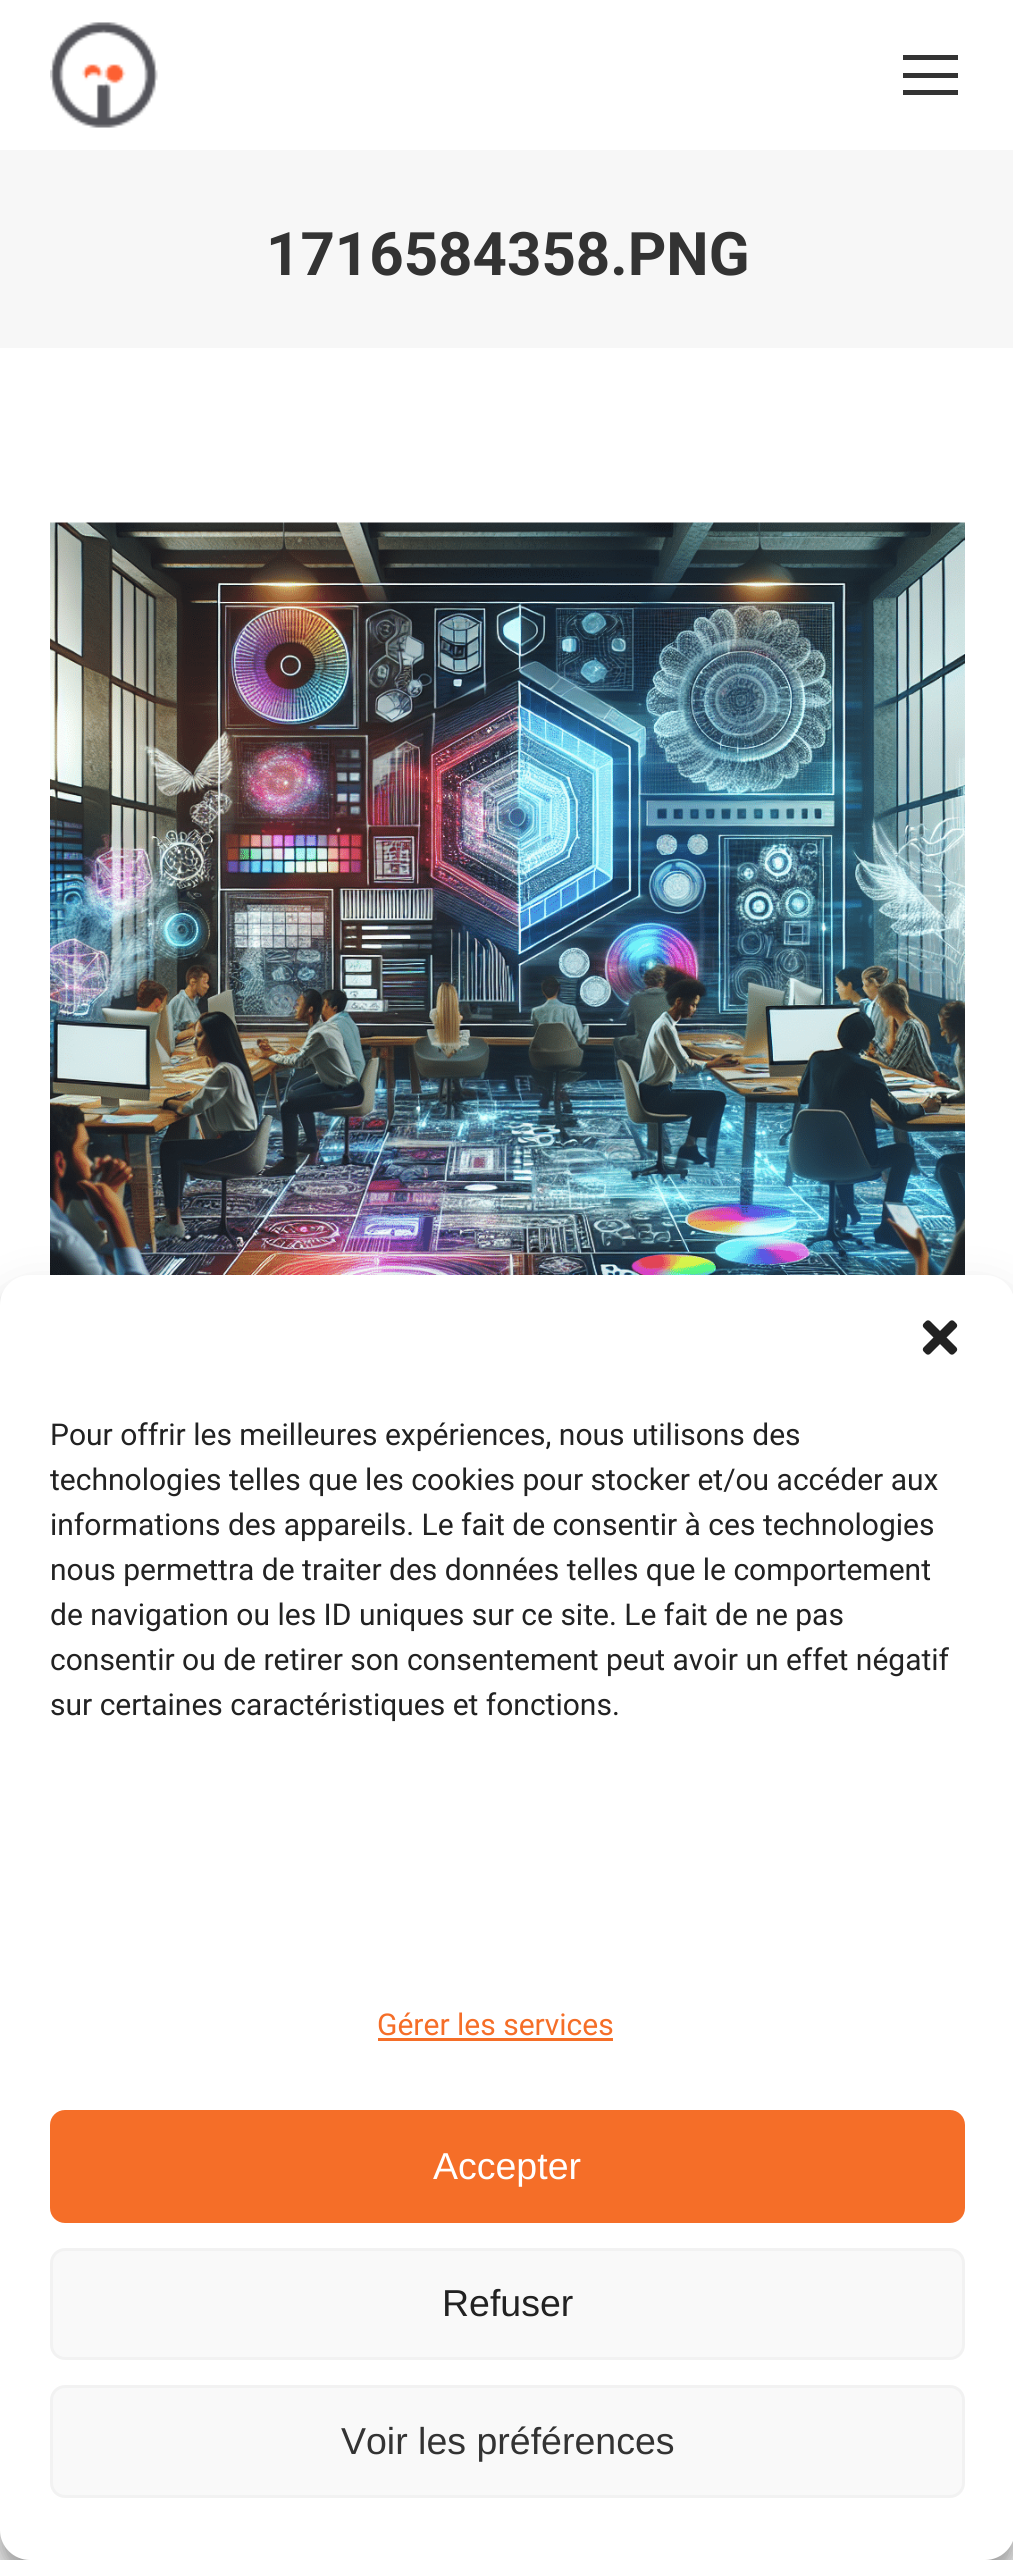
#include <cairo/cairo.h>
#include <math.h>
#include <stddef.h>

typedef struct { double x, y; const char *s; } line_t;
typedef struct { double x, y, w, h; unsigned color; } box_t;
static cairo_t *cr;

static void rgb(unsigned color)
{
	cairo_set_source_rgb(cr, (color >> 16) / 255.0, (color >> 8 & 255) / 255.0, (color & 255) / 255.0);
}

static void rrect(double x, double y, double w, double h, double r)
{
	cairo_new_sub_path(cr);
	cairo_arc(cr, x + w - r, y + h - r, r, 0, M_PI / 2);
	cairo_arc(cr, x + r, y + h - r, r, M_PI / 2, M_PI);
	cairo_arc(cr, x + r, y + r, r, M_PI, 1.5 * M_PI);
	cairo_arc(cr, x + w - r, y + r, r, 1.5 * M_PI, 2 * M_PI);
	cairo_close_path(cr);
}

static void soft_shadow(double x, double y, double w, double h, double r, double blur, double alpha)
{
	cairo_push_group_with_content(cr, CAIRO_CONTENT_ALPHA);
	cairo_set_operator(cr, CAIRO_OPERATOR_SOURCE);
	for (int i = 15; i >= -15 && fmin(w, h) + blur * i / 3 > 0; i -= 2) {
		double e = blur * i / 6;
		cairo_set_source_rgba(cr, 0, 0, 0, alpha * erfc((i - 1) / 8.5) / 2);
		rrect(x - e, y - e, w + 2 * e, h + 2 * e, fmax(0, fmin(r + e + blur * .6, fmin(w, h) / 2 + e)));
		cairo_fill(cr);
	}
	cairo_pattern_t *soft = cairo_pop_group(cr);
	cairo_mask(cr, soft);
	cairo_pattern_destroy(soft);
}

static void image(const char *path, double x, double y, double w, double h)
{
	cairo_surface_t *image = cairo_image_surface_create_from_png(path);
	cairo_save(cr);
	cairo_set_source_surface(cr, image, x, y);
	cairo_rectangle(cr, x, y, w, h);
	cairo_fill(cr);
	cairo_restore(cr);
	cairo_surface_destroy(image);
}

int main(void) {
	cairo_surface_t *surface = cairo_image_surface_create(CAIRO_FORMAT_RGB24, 1013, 2560);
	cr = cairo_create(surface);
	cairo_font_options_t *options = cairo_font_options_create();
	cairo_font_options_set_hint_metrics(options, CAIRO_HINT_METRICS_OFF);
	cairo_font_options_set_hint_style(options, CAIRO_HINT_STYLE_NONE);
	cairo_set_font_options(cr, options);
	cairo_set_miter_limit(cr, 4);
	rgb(0xf7f7f7);
	cairo_paint(cr);
	rgb(0xffffff);
	cairo_rectangle(cr, 0, 0, 1013, 1305);
	cairo_fill(cr);
	image("img/1.png", 50, 22, 108, 106);
	{
		static const box_t items[] = {
			{903, 55, 55, 5, 0x333333},
			{903, 73, 55, 5, 0x333333},
			{903, 90, 55, 5, 0x333333},
			{0, 150, 1013, 198, 0xf7f7f7},
		};
		for (size_t i = 0; i < sizeof items / sizeof *items; i++) {
			rgb(items[i].color);
			cairo_rectangle(cr, items[i].x, items[i].y, items[i].w, items[i].h);
			cairo_fill(cr);
		}
	}
	image("img/2.png", 50, 522, 915, 753);
	rgb(0x000000);
	soft_shadow(0, 1290, 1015, 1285, 30, 7.5, 0.23);
	soft_shadow(0, 1300, 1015, 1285, 30, 25, 0.19);
	rgb(0xffffff);
	rrect(0, 1275, 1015, 1285, 30);
	cairo_fill(cr);
	image("img/3.png", 922, 1320, 36, 35);
	rgb(0xf56e28);
	cairo_rectangle(cr, 378, 2038, 235, 3);
	cairo_fill(cr);
	rrect(51.5, 2111.5, 912, 110, 13.5);
	cairo_fill_preserve(cr);
	cairo_set_line_width(cr, 3);
	cairo_stroke(cr);
	rgb(0xf9f9f9);
	rrect(51.5, 2249.5, 912, 109, 13.5);
	cairo_fill_preserve(cr);
	rgb(0xf2f2f2);
	cairo_stroke(cr);
	rgb(0xf9f9f9);
	rrect(51.5, 2386.5, 912, 110, 13.5);
	cairo_fill_preserve(cr);
	rgb(0xf2f2f2);
	cairo_stroke(cr);
	cairo_select_font_face(cr, "Roboto", CAIRO_FONT_SLANT_NORMAL, CAIRO_FONT_WEIGHT_BOLD);
	cairo_set_font_size(cr, 60);
	rgb(0x333333);
	cairo_move_to(cr, 266, 275);
	cairo_show_text(cr, "1716584358.PNG");
	cairo_select_font_face(cr, "Roboto", CAIRO_FONT_SLANT_NORMAL, CAIRO_FONT_WEIGHT_NORMAL);
	cairo_set_font_size(cr, 30);
	rgb(0x222222);
	{
		static const line_t items[] = {
			{50, 1445, "Pour offrir les meilleures expériences, nous utilisons des"},
			{50, 1490, "technologies telles que les cookies pour stocker et/ou accéder aux"},
			{50, 1535, "informations des appareils. Le fait de consentir à ces technologies"},
			{50, 1580, "nous permettra de traiter des données telles que le comportement"},
			{50, 1625, "de navigation ou les ID uniques sur ce site. Le fait de ne pas"},
			{50, 1670, "consentir ou de retirer son consentement peut avoir un effet négatif"},
			{50, 1715, "sur certaines caractéristiques et fonctions."},
		};
		for (size_t i = 0; i < sizeof items / sizeof *items; i++) {
			cairo_move_to(cr, items[i].x, items[i].y);
			cairo_show_text(cr, items[i].s);
		}
	}
	rgb(0xf56e28);
	cairo_move_to(cr, 377, 2035);
	cairo_show_text(cr, "Gérer les services");
	cairo_select_font_face(cr, "Liberation Sans", CAIRO_FONT_SLANT_NORMAL, CAIRO_FONT_WEIGHT_NORMAL);
	cairo_set_font_size(cr, 37.5);
	rgb(0xffffff);
	cairo_move_to(cr, 433, 2179);
	cairo_show_text(cr, "Accepter");
	rgb(0x222222);
	cairo_move_to(cr, 442, 2316);
	cairo_show_text(cr, "Refuser");
	rgb(0x333333);
	cairo_move_to(cr, 341, 2454);
	cairo_show_text(cr, "Voir les préférences");
	cairo_surface_write_to_png(surface, "page.png");
	cairo_font_options_destroy(options);
	cairo_destroy(cr);
	cairo_surface_destroy(surface);
	return 0;
}
